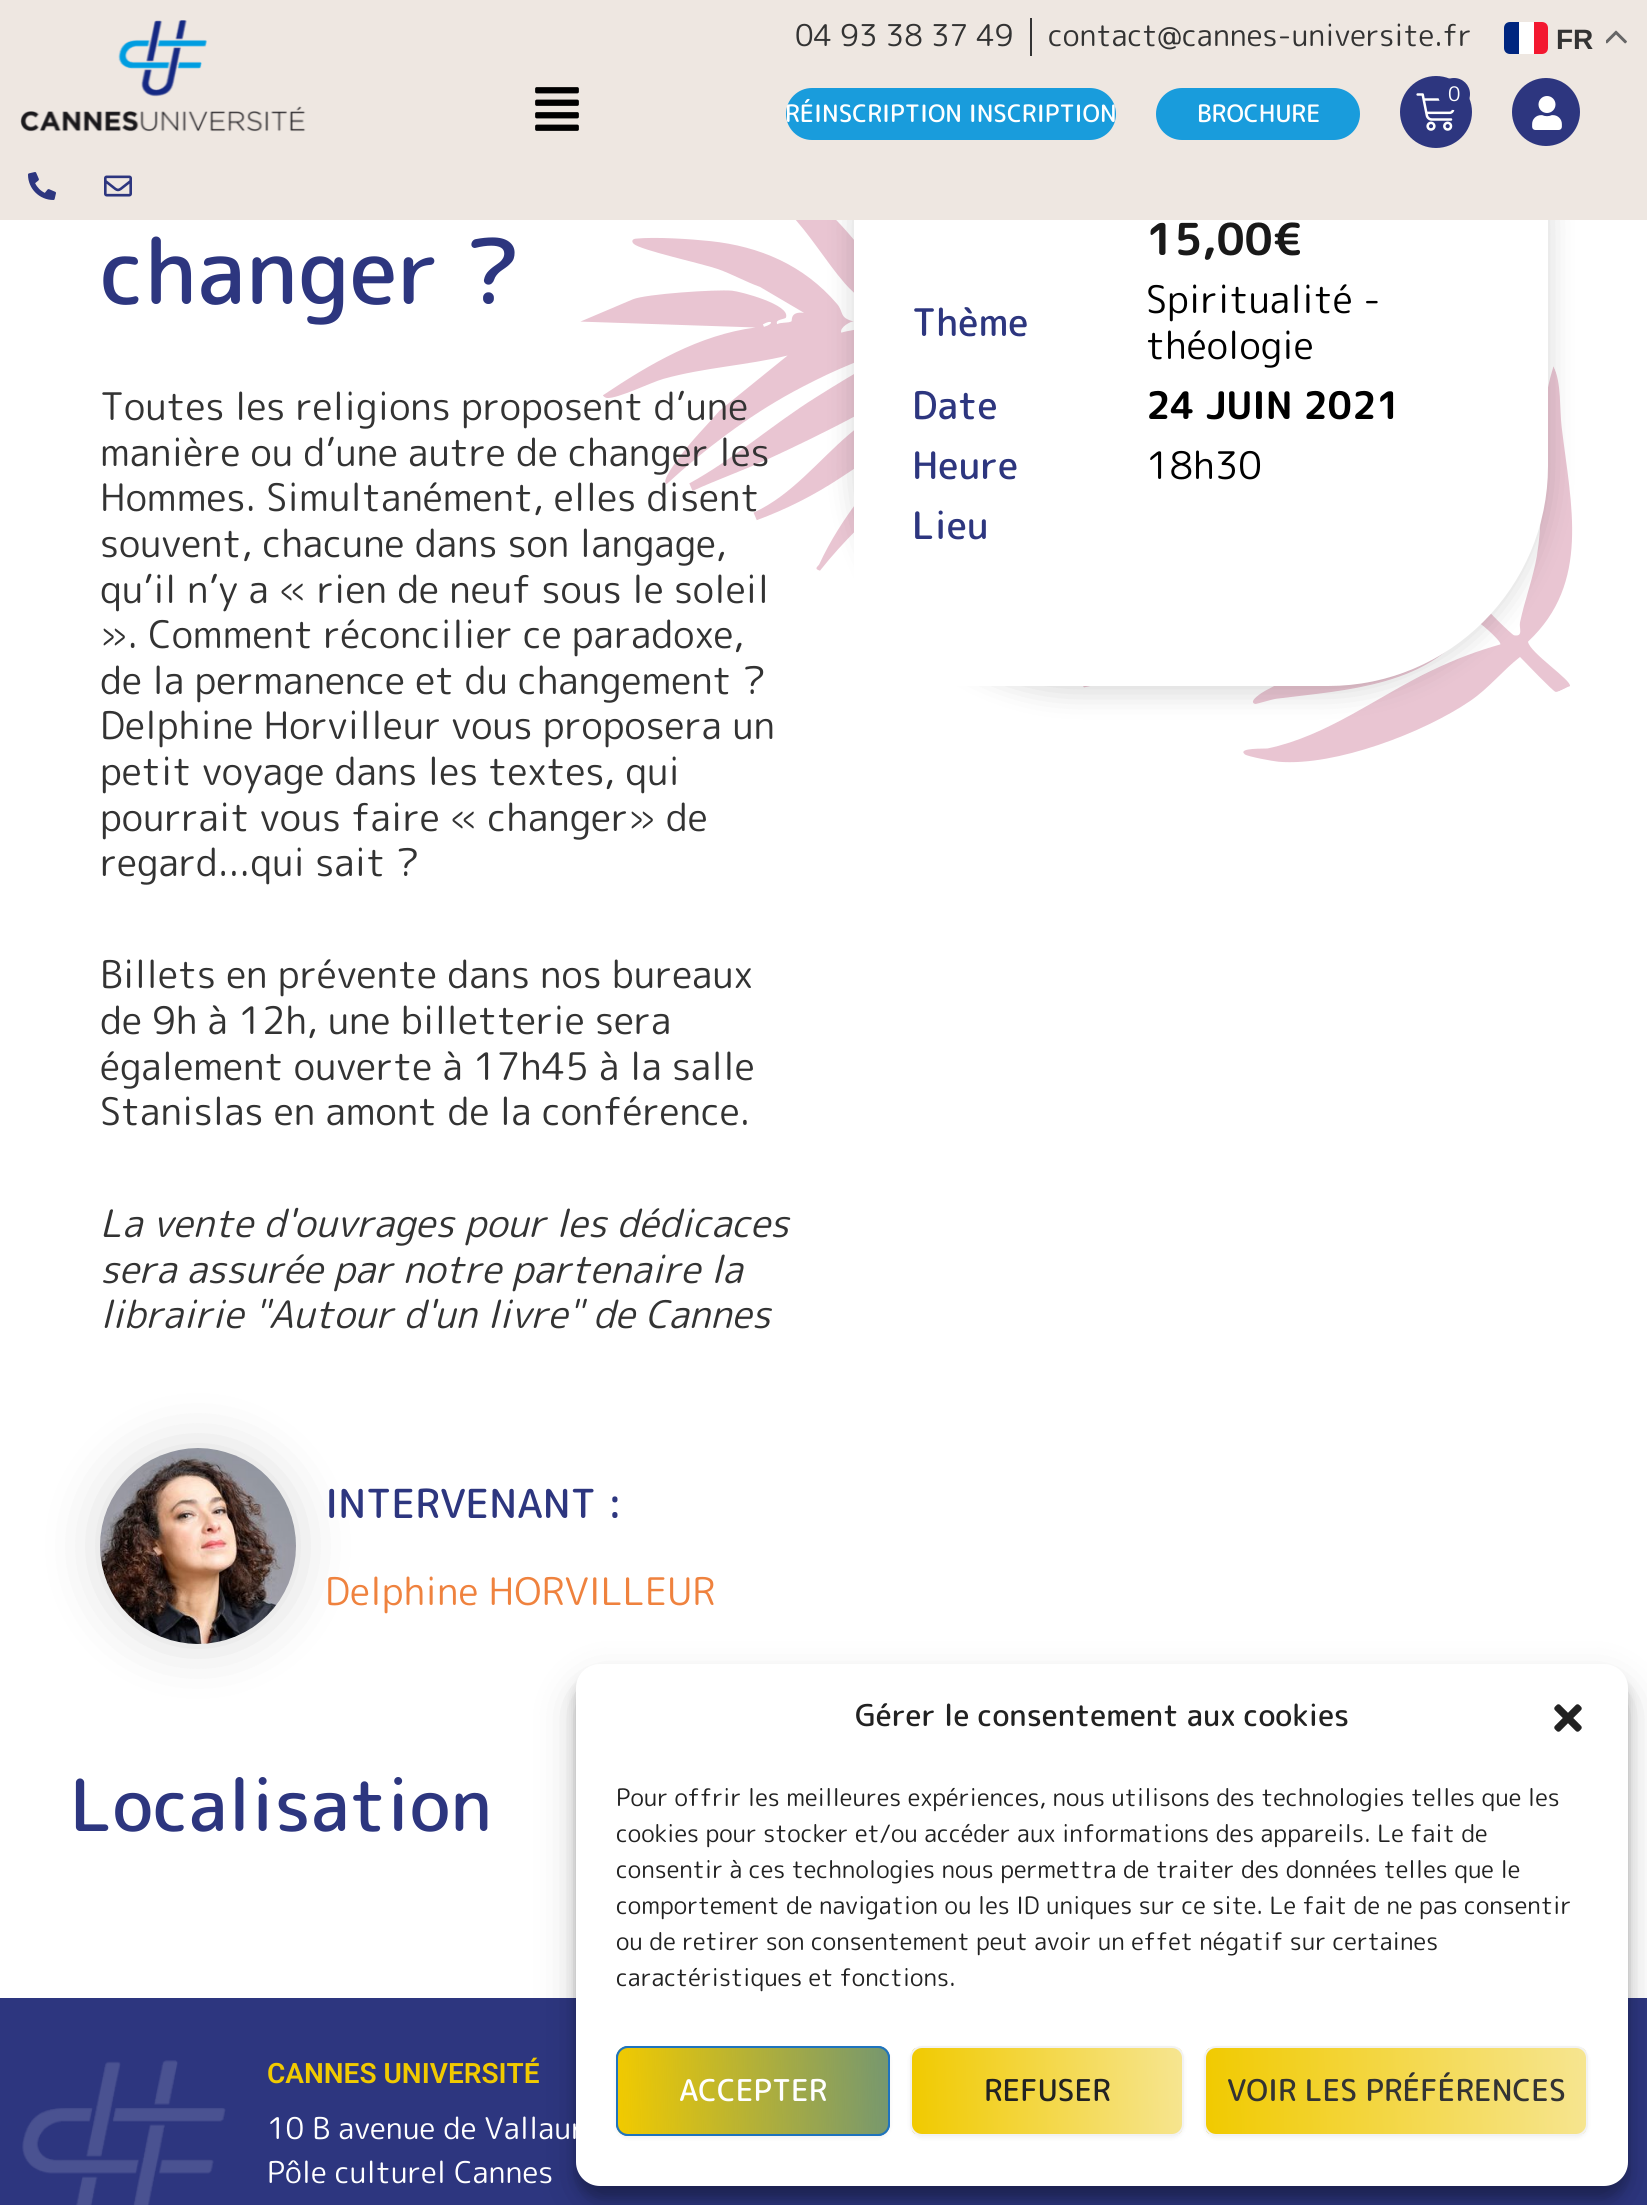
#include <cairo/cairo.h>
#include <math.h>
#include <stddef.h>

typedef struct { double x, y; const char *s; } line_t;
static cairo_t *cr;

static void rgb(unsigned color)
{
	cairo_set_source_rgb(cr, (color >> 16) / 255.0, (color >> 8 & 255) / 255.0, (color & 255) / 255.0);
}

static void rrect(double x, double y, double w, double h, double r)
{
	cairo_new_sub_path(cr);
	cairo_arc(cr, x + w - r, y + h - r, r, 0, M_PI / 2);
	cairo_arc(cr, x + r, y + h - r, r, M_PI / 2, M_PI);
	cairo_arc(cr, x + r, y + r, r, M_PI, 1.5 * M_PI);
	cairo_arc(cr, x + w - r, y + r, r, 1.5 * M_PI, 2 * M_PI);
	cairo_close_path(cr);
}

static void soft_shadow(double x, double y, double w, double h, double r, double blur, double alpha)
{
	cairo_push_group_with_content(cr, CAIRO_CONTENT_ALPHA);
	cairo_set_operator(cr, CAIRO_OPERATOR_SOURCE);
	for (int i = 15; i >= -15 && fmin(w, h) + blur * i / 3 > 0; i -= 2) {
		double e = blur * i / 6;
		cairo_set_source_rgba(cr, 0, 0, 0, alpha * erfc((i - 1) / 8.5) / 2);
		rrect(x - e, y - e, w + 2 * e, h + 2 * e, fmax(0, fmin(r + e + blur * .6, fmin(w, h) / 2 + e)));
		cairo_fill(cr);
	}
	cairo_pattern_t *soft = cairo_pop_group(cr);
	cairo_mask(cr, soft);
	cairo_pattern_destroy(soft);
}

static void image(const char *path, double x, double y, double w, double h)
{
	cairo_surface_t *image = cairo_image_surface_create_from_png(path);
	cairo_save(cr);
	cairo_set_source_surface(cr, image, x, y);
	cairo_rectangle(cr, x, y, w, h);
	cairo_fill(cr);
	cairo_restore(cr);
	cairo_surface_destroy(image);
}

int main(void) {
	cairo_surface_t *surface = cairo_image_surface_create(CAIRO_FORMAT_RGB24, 1647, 2205);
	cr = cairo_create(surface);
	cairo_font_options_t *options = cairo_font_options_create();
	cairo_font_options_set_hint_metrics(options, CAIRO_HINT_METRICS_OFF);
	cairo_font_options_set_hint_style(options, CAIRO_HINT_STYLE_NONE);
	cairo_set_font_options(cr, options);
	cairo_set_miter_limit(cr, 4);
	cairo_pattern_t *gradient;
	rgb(0xffffff);
	cairo_paint(cr);
	image("img/8.png", 580, 220, 993, 543);
	rgb(0x000000);
	soft_shadow(854, 6, 694, 686, 220, 15, 0.16);
	rgb(0xffffff);
	cairo_new_path(cr);
	cairo_move_to(cr, 854, 0);
	cairo_line_to(cr, 1548, 0);
	cairo_line_to(cr, 1548, 466);
	cairo_curve_to(cr, 1548, 587.5, 1449.5, 686, 1328, 686);
	cairo_line_to(cr, 854, 686);
	cairo_close_path(cr);
	cairo_fill(cr);
	rgb(0xeee7e1);
	cairo_rectangle(cr, 0, 0, 1647, 220);
	cairo_fill(cr);
	image("img/1.png", 20, 20, 286, 112);
	image("img/2.png", 28, 172, 28, 28);
	image("img/3.png", 104, 175, 28, 22);
	rgb(0x333333);
	cairo_rectangle(cr, 1030, 18, 2, 38);
	cairo_fill(cr);
	rgb(0xffffff);
	rrect(1504, 22, 44, 32, 6);
	cairo_fill(cr);
	rgb(0x00267f);
	cairo_new_path(cr);
	cairo_move_to(cr, 1510, 22);
	cairo_line_to(cr, 1519, 22);
	cairo_line_to(cr, 1519, 54);
	cairo_line_to(cr, 1510, 54);
	cairo_curve_to(cr, 1506.5, 54, 1504, 51.5, 1504, 48);
	cairo_line_to(cr, 1504, 28);
	cairo_curve_to(cr, 1504, 24.5, 1506.5, 22, 1510, 22);
	cairo_close_path(cr);
	cairo_fill(cr);
	rgb(0xf31830);
	cairo_new_path(cr);
	cairo_move_to(cr, 1534, 22);
	cairo_line_to(cr, 1542, 22);
	cairo_curve_to(cr, 1545.5, 22, 1548, 24.5, 1548, 28);
	cairo_line_to(cr, 1548, 48);
	cairo_curve_to(cr, 1548, 51.5, 1545.5, 54, 1542, 54);
	cairo_line_to(cr, 1534, 54);
	cairo_close_path(cr);
	cairo_fill(cr);
	image("img/4.png", 1606, 30, 21, 14);
	image("img/5.png", 535, 87, 44, 44);
	rgb(0x2d367f);
	cairo_arc(cr, 1436, 112, 36, 0, 2 * M_PI);
	cairo_fill(cr);
	image("img/6.png", 1416, 93, 39, 38);
	cairo_arc(cr, 1454, 94, 16, 0, 2 * M_PI);
	cairo_fill(cr);
	cairo_arc(cr, 1546, 112, 34, 0, 2 * M_PI);
	cairo_fill(cr);
	image("img/7.png", 1532, 96, 30, 34);
	rgb(0x199cdc);
	rrect(786, 88, 330, 52, 26);
	cairo_fill(cr);
	rrect(1156, 88, 204, 52, 26);
	cairo_fill(cr);
	rgb(0x000000);
	soft_shadow(100, 1448, 196, 196, 98, 30, 0.15);
	image("img/9.png", 100, 1448, 196, 196);
	rgb(0x2d367f);
	cairo_rectangle(cr, 0, 1998, 1647, 207);
	cairo_fill(cr);
	image("img/10.png", 22, 2060, 204, 145);
	rgb(0x000000);
	soft_shadow(576, 1676, 1052, 522, 24, 6, 0.23);
	soft_shadow(576, 1684, 1052, 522, 24, 20, 0.19);
	rgb(0xffffff);
	rrect(576, 1664, 1052, 522, 24);
	cairo_fill(cr);
	image("img/11.png", 1554, 1704, 28, 28);
	rgb(0x000000);
	soft_shadow(616, 2048, 274, 90, 12, 2, 0.05);
	rgb(0x1e73be);
	rrect(616, 2046, 274, 90, 12);
	cairo_fill(cr);
	cairo_save(cr);
	rrect(616, 2046, 274, 90, 12);
	cairo_clip(cr);
	gradient = cairo_pattern_create_linear(617, 2096, 889, 2086);
	cairo_pattern_add_color_stop_rgba(gradient, 0, 0.945, 0.792, 0, 1);
	cairo_pattern_add_color_stop_rgba(gradient, 1, 0.945, 0.792, 0, 0.42);
	cairo_set_source(cr, gradient);
	cairo_pattern_destroy(gradient);
	cairo_rectangle(cr, 618, 2048, 270, 86);
	cairo_fill(cr);
	cairo_restore(cr);
	rrect(617, 2047, 272, 88, 11);
	cairo_stroke(cr);
	rgb(0x000000);
	soft_shadow(910, 2048, 274, 90, 12, 2, 0.05);
	cairo_save(cr);
	rrect(910, 2046, 274, 90, 12);
	cairo_clip(cr);
	gradient = cairo_pattern_create_linear(911, 2096, 1183, 2086);
	cairo_pattern_add_color_stop_rgba(gradient, 0, 0.945, 0.792, 0, 1);
	cairo_pattern_add_color_stop_rgba(gradient, 1, 0.965, 0.898, 0.565, 1);
	cairo_set_source(cr, gradient);
	cairo_pattern_destroy(gradient);
	cairo_rectangle(cr, 912, 2048, 270, 86);
	cairo_fill(cr);
	cairo_restore(cr);
	rrect(911, 2047, 272, 88, 11);
	rgb(0xf2f2f2);
	cairo_stroke(cr);
	rgb(0x000000);
	soft_shadow(1204, 2048, 384, 90, 12, 2, 0.05);
	cairo_save(cr);
	rrect(1204, 2046, 384, 90, 12);
	cairo_clip(cr);
	gradient = cairo_pattern_create_linear(1205, 2098, 1587, 2084);
	cairo_pattern_add_color_stop_rgba(gradient, 0, 0.945, 0.792, 0, 1);
	cairo_pattern_add_color_stop_rgba(gradient, 1, 0.965, 0.898, 0.565, 1);
	cairo_set_source(cr, gradient);
	cairo_pattern_destroy(gradient);
	cairo_rectangle(cr, 1206, 2048, 380, 86);
	cairo_fill(cr);
	cairo_restore(cr);
	rrect(1205, 2047, 382, 88, 11);
	rgb(0xf2f2f2);
	cairo_stroke(cr);
	cairo_select_font_face(cr, "Rounded Mplus 1c", CAIRO_FONT_SLANT_NORMAL, CAIRO_FONT_WEIGHT_NORMAL);
	cairo_set_font_size(cr, 30);
	rgb(0x333333);
	cairo_move_to(cr, 795, 46);
	cairo_show_text(cr, "04 93 38 37 49");
	cairo_move_to(cr, 1048, 46);
	cairo_show_text(cr, "contact@cannes-universite.fr");
	cairo_select_font_face(cr, "Liberation Sans", CAIRO_FONT_SLANT_NORMAL, CAIRO_FONT_WEIGHT_BOLD);
	cairo_set_font_size(cr, 28);
	cairo_move_to(cr, 1556, 49);
	cairo_show_text(cr, "FR");
	cairo_select_font_face(cr, "Rounded Mplus 1c", CAIRO_FONT_SLANT_NORMAL, CAIRO_FONT_WEIGHT_NORMAL);
	cairo_set_font_size(cr, 20);
	rgb(0xffffff);
	cairo_move_to(cr, 1448, 101);
	cairo_show_text(cr, "0");
	cairo_select_font_face(cr, "Rounded Mplus 1c Medium", CAIRO_FONT_SLANT_NORMAL, CAIRO_FONT_WEIGHT_NORMAL);
	cairo_set_font_size(cr, 24);
	cairo_move_to(cr, 785, 122);
	cairo_show_text(cr, "RÉINSCRIPTION INSCRIPTION");
	cairo_move_to(cr, 1197, 122);
	cairo_show_text(cr, "BROCHURE");
	cairo_set_font_size(cr, 90);
	rgb(0x2d367f);
	cairo_move_to(cr, 100, 304);
	cairo_show_text(cr, "changer ?");
	cairo_select_font_face(cr, "Rounded Mplus 1c", CAIRO_FONT_SLANT_NORMAL, CAIRO_FONT_WEIGHT_NORMAL);
	cairo_set_font_size(cr, 38);
	rgb(0x333333);
	{
		static const line_t items[] = {
			{100, 420, "Toutes les religions proposent d’une"},
			{100, 466, "manière ou d’une autre de changer les"},
			{100, 511, "Hommes. Simultanément, elles disent"},
			{100, 557, "souvent, chacune dans son langage,"},
			{100, 603, "qu’il n’y a « rien de neuf sous le soleil"},
			{100, 648, "». Comment réconcilier ce paradoxe,"},
			{100, 694, "de la permanence et du changement ?"},
			{100, 739, "Delphine Horvilleur vous proposera un"},
			{100, 785, "petit voyage dans les textes, qui"},
			{100, 831, "pourrait vous faire « changer» de"},
			{100, 876, "regard...qui sait ?"},
			{100, 988, "Billets en prévente dans nos bureaux"},
			{100, 1034, "de 9h à 12h, une billetterie sera"},
			{100, 1080, "également ouverte à 17h45 à la salle"},
			{100, 1125, "Stanislas en amont de la conférence."},
		};
		for (size_t i = 0; i < sizeof items / sizeof *items; i++) {
			cairo_move_to(cr, items[i].x, items[i].y);
			cairo_show_text(cr, items[i].s);
		}
	}
	cairo_select_font_face(cr, "Rounded Mplus 1c", CAIRO_FONT_SLANT_ITALIC, CAIRO_FONT_WEIGHT_NORMAL);
	{
		static const line_t items[] = {
			{100, 1237, "La vente d'ouvrages pour les dédicaces"},
			{100, 1283, "sera assurée par notre partenaire la"},
			{100, 1328, "librairie \"Autour d'un livre\" de Cannes"},
		};
		for (size_t i = 0; i < sizeof items / sizeof *items; i++) {
			cairo_move_to(cr, items[i].x, items[i].y);
			cairo_show_text(cr, items[i].s);
		}
	}
	cairo_select_font_face(cr, "Rounded Mplus 1c Medium", CAIRO_FONT_SLANT_NORMAL, CAIRO_FONT_WEIGHT_NORMAL);
	cairo_set_font_size(cr, 40);
	rgb(0x2d367f);
	cairo_move_to(cr, 325, 1518);
	cairo_show_text(cr, "INTERVENANT :");
	cairo_select_font_face(cr, "Rounded Mplus 1c", CAIRO_FONT_SLANT_NORMAL, CAIRO_FONT_WEIGHT_NORMAL);
	cairo_set_font_size(cr, 38);
	rgb(0xef823e);
	cairo_move_to(cr, 325, 1605);
	cairo_show_text(cr, "Delphine HORVILLEUR");
	cairo_select_font_face(cr, "Rounded Mplus 1c Bold", CAIRO_FONT_SLANT_NORMAL, CAIRO_FONT_WEIGHT_BOLD);
	cairo_set_font_size(cr, 44);
	rgb(0x191919);
	cairo_move_to(cr, 1146, 255);
	cairo_show_text(cr, "15,00€");
	cairo_select_font_face(cr, "Rounded Mplus 1c Medium", CAIRO_FONT_SLANT_NORMAL, CAIRO_FONT_WEIGHT_NORMAL);
	cairo_set_font_size(cr, 38);
	rgb(0x2d367f);
	cairo_move_to(cr, 912, 336);
	cairo_show_text(cr, "Thème");
	cairo_select_font_face(cr, "Rounded Mplus 1c", CAIRO_FONT_SLANT_NORMAL, CAIRO_FONT_WEIGHT_NORMAL);
	rgb(0x000000);
	cairo_move_to(cr, 1146, 313);
	cairo_show_text(cr, "Spiritualité -");
	cairo_move_to(cr, 1146, 359);
	cairo_show_text(cr, "théologie");
	cairo_select_font_face(cr, "Rounded Mplus 1c Medium", CAIRO_FONT_SLANT_NORMAL, CAIRO_FONT_WEIGHT_NORMAL);
	rgb(0x2d367f);
	cairo_move_to(cr, 912, 419);
	cairo_show_text(cr, "Date");
	cairo_select_font_face(cr, "Rounded Mplus 1c Bold", CAIRO_FONT_SLANT_NORMAL, CAIRO_FONT_WEIGHT_BOLD);
	rgb(0x000000);
	cairo_move_to(cr, 1146, 419);
	cairo_show_text(cr, "24 JUIN 2021");
	cairo_select_font_face(cr, "Rounded Mplus 1c Medium", CAIRO_FONT_SLANT_NORMAL, CAIRO_FONT_WEIGHT_NORMAL);
	rgb(0x2d367f);
	cairo_move_to(cr, 912, 479);
	cairo_show_text(cr, "Heure");
	cairo_select_font_face(cr, "Rounded Mplus 1c", CAIRO_FONT_SLANT_NORMAL, CAIRO_FONT_WEIGHT_NORMAL);
	rgb(0x000000);
	cairo_move_to(cr, 1146, 479);
	cairo_show_text(cr, "18h30");
	cairo_select_font_face(cr, "Rounded Mplus 1c Medium", CAIRO_FONT_SLANT_NORMAL, CAIRO_FONT_WEIGHT_NORMAL);
	rgb(0x2d367f);
	cairo_move_to(cr, 912, 539);
	cairo_show_text(cr, "Lieu");
	cairo_set_font_size(cr, 72);
	cairo_move_to(cr, 70, 1831);
	cairo_show_text(cr, "Localisation");
	cairo_select_font_face(cr, "Roboto SemiBold", CAIRO_FONT_SLANT_NORMAL, CAIRO_FONT_WEIGHT_NORMAL);
	cairo_set_font_size(cr, 28);
	rgb(0xf1ca00);
	cairo_move_to(cr, 267, 2083);
	cairo_show_text(cr, "CANNES UNIVERSITÉ");
	cairo_select_font_face(cr, "Rounded Mplus 1c", CAIRO_FONT_SLANT_NORMAL, CAIRO_FONT_WEIGHT_NORMAL);
	cairo_set_font_size(cr, 30);
	rgb(0xffffff);
	cairo_move_to(cr, 267, 2139);
	cairo_show_text(cr, "10 B avenue de Vallaur");
	cairo_move_to(cr, 267, 2183);
	cairo_show_text(cr, "Pôle culturel Cannes");
	cairo_select_font_face(cr, "Rounded Mplus 1c Medium", CAIRO_FONT_SLANT_NORMAL, CAIRO_FONT_WEIGHT_NORMAL);
	rgb(0x222222);
	cairo_move_to(cr, 855, 1726);
	cairo_show_text(cr, "Gérer le consentement aux cookies");
	cairo_select_font_face(cr, "Rounded Mplus 1c", CAIRO_FONT_SLANT_NORMAL, CAIRO_FONT_WEIGHT_NORMAL);
	cairo_set_font_size(cr, 24);
	{
		static const line_t items[] = {
			{616, 1806, "Pour offrir les meilleures expériences, nous utilisons des technologies telles que les"},
			{616, 1842, "cookies pour stocker et/ou accéder aux informations des appareils. Le fait de"},
			{616, 1878, "consentir à ces technologies nous permettra de traiter des données telles que le"},
			{616, 1914, "comportement de navigation ou les ID uniques sur ce site. Le fait de ne pas consentir"},
			{616, 1950, "ou de retirer son consentement peut avoir un effet négatif sur certaines"},
			{616, 1986, "caractéristiques et fonctions."},
		};
		for (size_t i = 0; i < sizeof items / sizeof *items; i++) {
			cairo_move_to(cr, items[i].x, items[i].y);
			cairo_show_text(cr, items[i].s);
		}
	}
	cairo_select_font_face(cr, "Rounded Mplus 1c Medium", CAIRO_FONT_SLANT_NORMAL, CAIRO_FONT_WEIGHT_NORMAL);
	cairo_set_font_size(cr, 30);
	rgb(0xffffff);
	cairo_move_to(cr, 679, 2101);
	cairo_show_text(cr, "ACCEPTER");
	rgb(0x222222);
	cairo_move_to(cr, 984, 2101);
	cairo_show_text(cr, "REFUSER");
	rgb(0x333333);
	cairo_move_to(cr, 1227, 2101);
	cairo_show_text(cr, "VOIR LES PRÉFÉRENCES");
	cairo_surface_write_to_png(surface, "page.png");
	cairo_font_options_destroy(options);
	cairo_destroy(cr);
	cairo_surface_destroy(surface);
	return 0;
}
